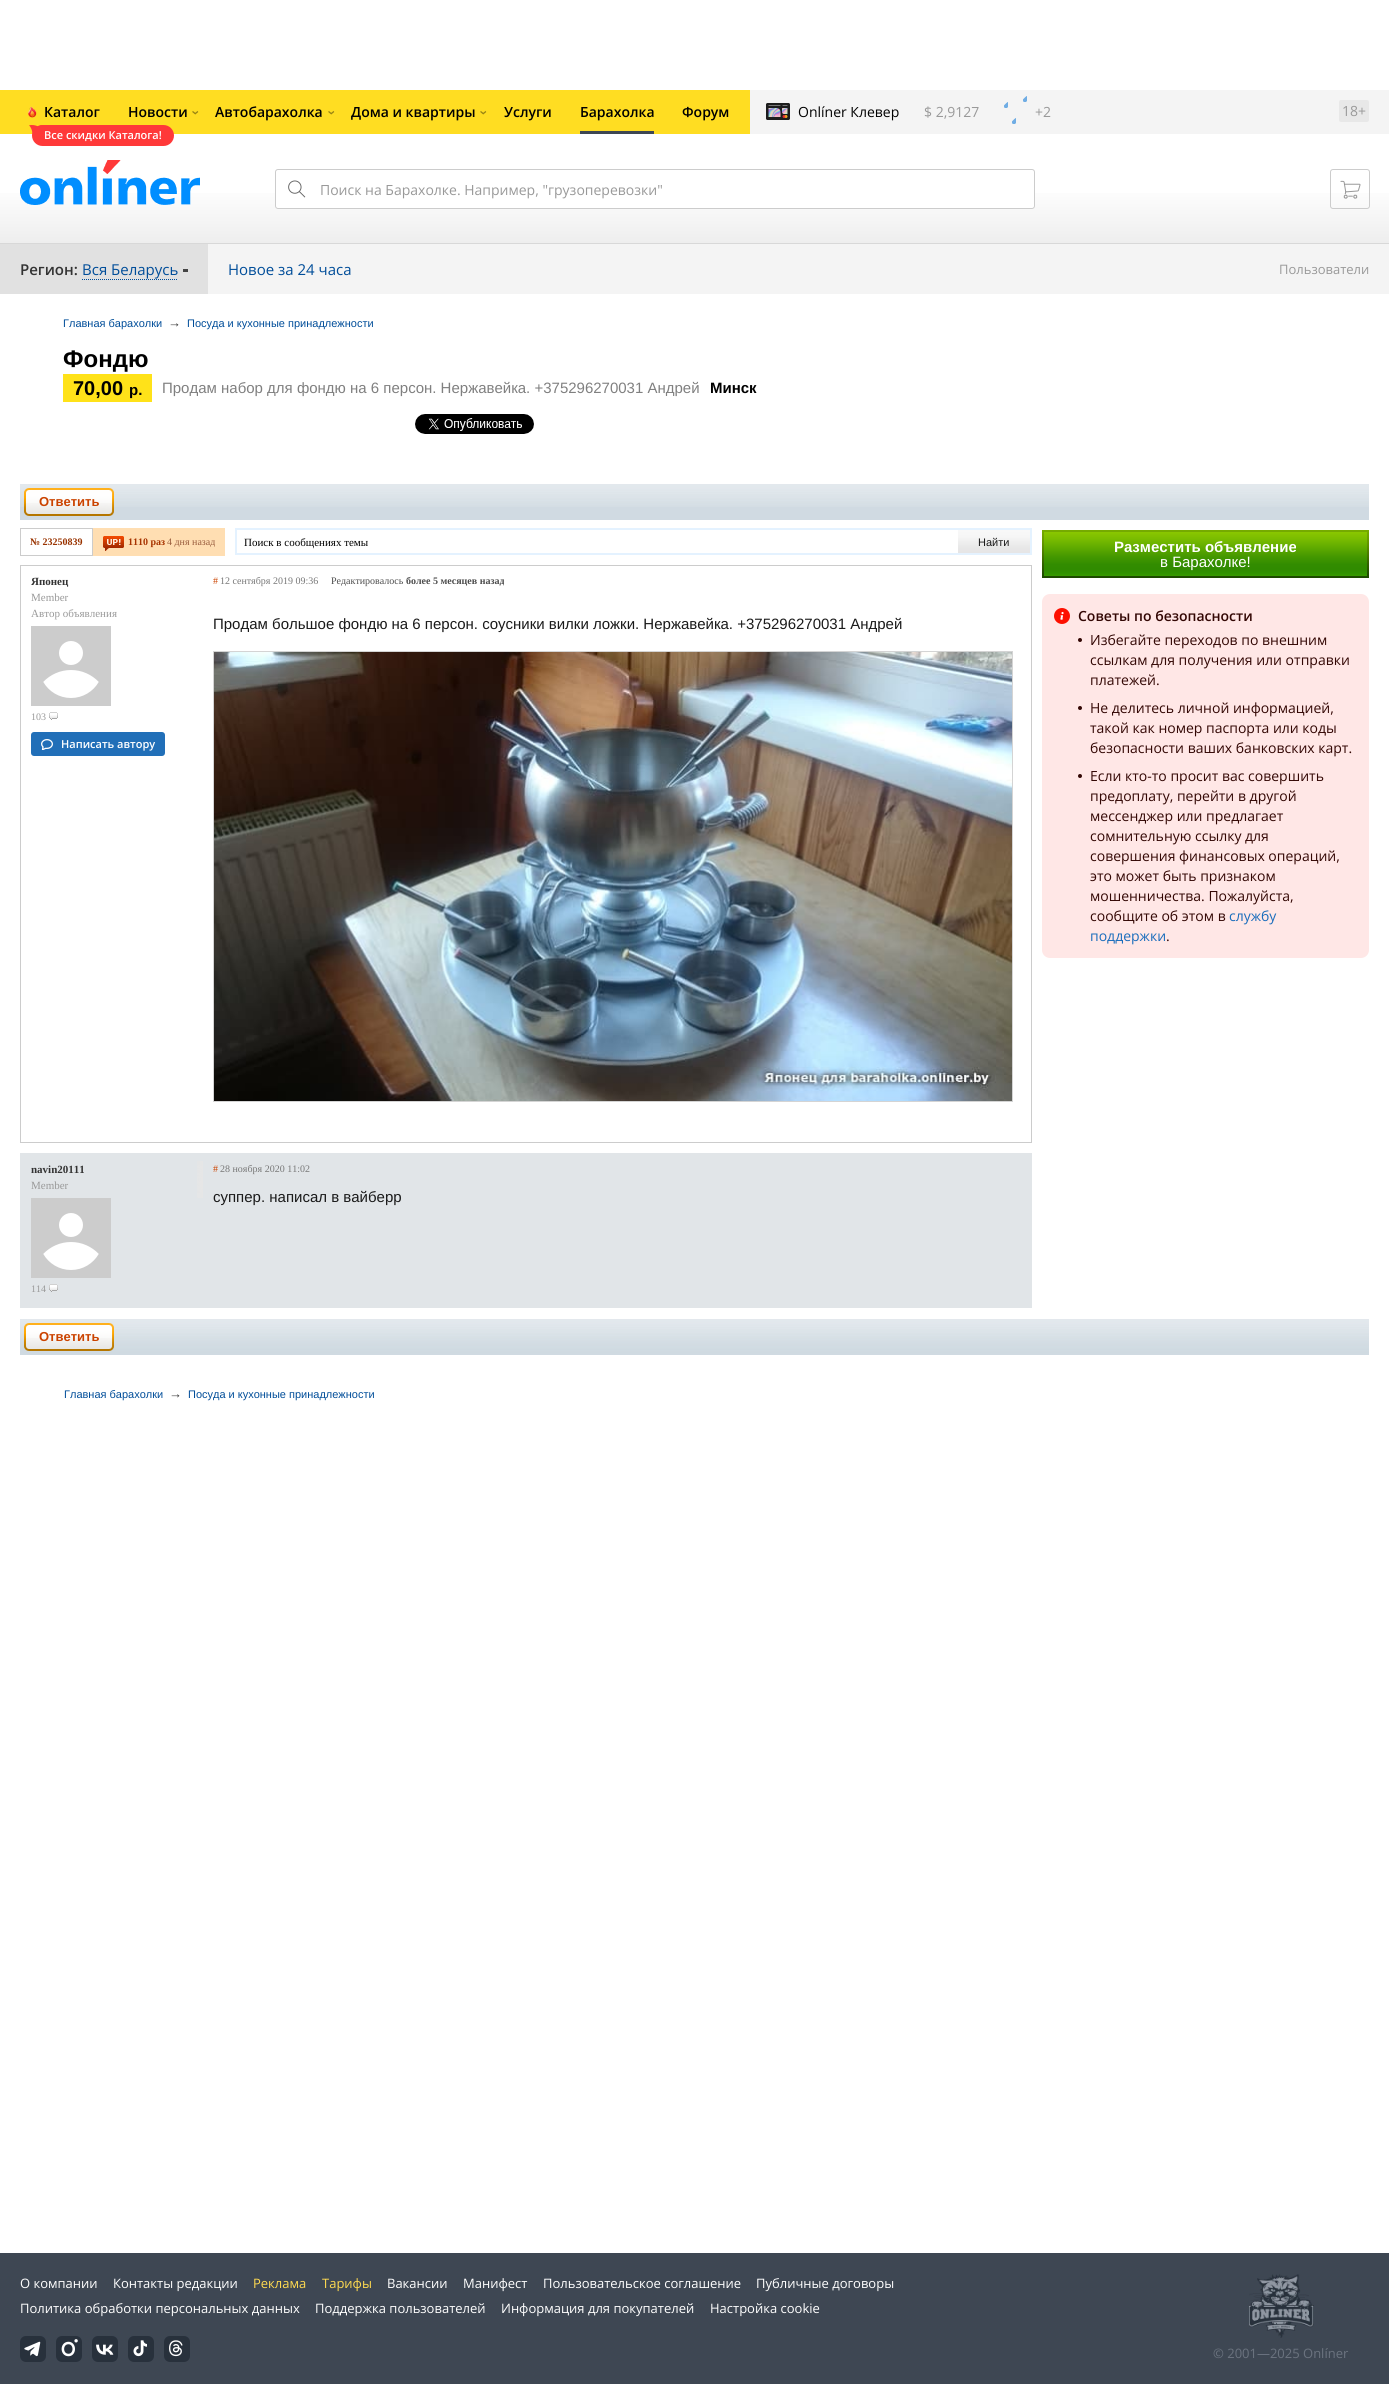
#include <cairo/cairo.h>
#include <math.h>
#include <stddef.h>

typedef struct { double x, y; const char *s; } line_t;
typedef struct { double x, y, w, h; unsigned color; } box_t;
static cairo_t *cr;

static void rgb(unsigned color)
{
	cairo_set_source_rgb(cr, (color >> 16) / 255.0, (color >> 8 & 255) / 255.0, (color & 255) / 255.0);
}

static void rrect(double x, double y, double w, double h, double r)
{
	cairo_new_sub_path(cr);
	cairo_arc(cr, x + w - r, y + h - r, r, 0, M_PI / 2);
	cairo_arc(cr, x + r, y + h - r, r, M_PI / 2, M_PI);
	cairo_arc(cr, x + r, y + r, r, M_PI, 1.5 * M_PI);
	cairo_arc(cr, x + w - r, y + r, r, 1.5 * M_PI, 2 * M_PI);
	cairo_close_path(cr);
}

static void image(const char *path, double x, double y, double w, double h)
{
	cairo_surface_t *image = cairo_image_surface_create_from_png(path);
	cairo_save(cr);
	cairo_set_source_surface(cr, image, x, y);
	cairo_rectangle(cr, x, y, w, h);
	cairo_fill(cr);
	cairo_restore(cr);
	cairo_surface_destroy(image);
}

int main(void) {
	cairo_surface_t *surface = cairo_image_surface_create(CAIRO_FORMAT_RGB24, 1389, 2384);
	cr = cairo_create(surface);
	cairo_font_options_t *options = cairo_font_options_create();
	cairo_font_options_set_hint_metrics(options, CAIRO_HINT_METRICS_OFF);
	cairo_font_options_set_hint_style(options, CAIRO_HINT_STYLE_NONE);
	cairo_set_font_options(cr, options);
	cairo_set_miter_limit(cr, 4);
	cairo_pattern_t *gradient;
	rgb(0xffffff);
	cairo_paint(cr);
	gradient = cairo_pattern_create_linear(695, 90, 695, 280);
	cairo_pattern_add_color_stop_rgba(gradient, 0, 1, 1, 1, 1);
	cairo_pattern_add_color_stop_rgba(gradient, 0.5, 1, 1, 1, 1);
	cairo_pattern_add_color_stop_rgba(gradient, 1, 0.89, 0.89, 0.89, 1);
	cairo_set_source(cr, gradient);
	cairo_pattern_destroy(gradient);
	cairo_rectangle(cr, 0, 193, 1389, 50);
	cairo_fill(cr);
	rgb(0xf4f4f4);
	cairo_rectangle(cr, 750, 90, 639, 44);
	cairo_fill(cr);
	rgb(0xffdd22);
	cairo_rectangle(cr, 0, 90, 750, 44);
	cairo_fill(cr);
	image("img/1.png", 28, 106, 9, 12);
	rgb(0xff3939);
	rrect(32, 125, 142, 21, 10.5);
	cairo_fill(cr);
	image("img/2.png", 29, 125, 13, 10);
	rgb(0x3e4753);
	cairo_rectangle(cr, 580, 131, 74, 3);
	cairo_fill(cr);
	image("img/3.png", 766, 103, 24, 17);
	image("img/4.png", 1004, 96, 23, 28);
	rgb(0xe8e8e8);
	rrect(1339, 100, 30, 22, 2);
	cairo_fill(cr);
	image("img/5.png", 20, 160, 180, 45);
	rgb(0xffffff);
	rrect(275, 169, 760, 40, 3);
	cairo_fill(cr);
	image("img/6.png", 288, 180, 18, 18);
	rrect(275.5, 169.5, 759, 39, 2.5);
	rgb(0xcccccc);
	cairo_set_line_width(cr, 1);
	cairo_stroke(cr);
	rrect(1330.5, 169.5, 39, 39, 2.5);
	cairo_stroke(cr);
	image("img/7.png", 1340, 180, 21, 19);
	{
		static const box_t items[] = {
			{0, 243, 1389, 1, 0xd8d8d8},
			{208, 244, 1181, 50, 0xf4f4f4},
			{0, 244, 208, 50, 0xe1e1e1},
		};
		for (size_t i = 0; i < sizeof items / sizeof *items; i++) {
			rgb(items[i].color);
			cairo_rectangle(cr, items[i].x, items[i].y, items[i].w, items[i].h);
			cairo_fill(cr);
		}
	}
	cairo_new_path(cr);
	cairo_move_to(cr, 82, 279.5);
	cairo_line_to(cr, 178, 279.5);
	rgb(0x004d99);
	cairo_set_dash(cr, (double[]){1, 1}, 2, 0);
	cairo_stroke(cr);
	rgb(0x444444);
	cairo_rectangle(cr, 183, 269, 5, 3);
	cairo_fill(cr);
	rgb(0xffe219);
	cairo_rectangle(cr, 63, 374, 89, 28);
	cairo_fill(cr);
	image("img/8.png", 415, 414, 119, 20);
	rgb(0xd0dae2);
	cairo_rectangle(cr, 20, 507, 1349, 13);
	cairo_fill(cr);
	image("img/9.png", 20, 484, 1349, 23);
	image("img/10.png", 24, 488, 7, 28);
	image("img/11.png", 31, 488, 83, 28);
	cairo_rectangle(cr, 20.5, 528.5, 72, 27);
	rgb(0xcccccc);
	cairo_set_dash(cr, NULL, 0, 0);
	cairo_stroke(cr);
	rgb(0xffdeb2);
	cairo_rectangle(cr, 93, 528, 132, 28);
	cairo_fill(cr);
	image("img/12.png", 103, 536, 21, 15);
	rgb(0xe4f2ff);
	cairo_rectangle(cr, 235, 528, 797, 27);
	cairo_fill(cr);
	rgb(0xffffff);
	cairo_rectangle(cr, 237, 530, 721, 23);
	cairo_fill(cr);
	gradient = cairo_pattern_create_linear(994, 530, 994, 553);
	cairo_pattern_add_color_stop_rgba(gradient, 0, 0.973, 0.973, 0.973, 1);
	cairo_pattern_add_color_stop_rgba(gradient, 0.28, 0.965, 0.965, 0.965, 1);
	cairo_pattern_add_color_stop_rgba(gradient, 0.78, 0.906, 0.906, 0.906, 1);
	cairo_pattern_add_color_stop_rgba(gradient, 1, 0.902, 0.898, 0.902, 1);
	cairo_set_source(cr, gradient);
	cairo_pattern_destroy(gradient);
	cairo_rectangle(cr, 958, 530, 72, 23);
	cairo_fill(cr);
	cairo_rectangle(cr, 20.5, 565.5, 1011, 577);
	rgb(0xcccccc);
	cairo_stroke(cr);
	image("img/13.png", 31, 626, 80, 80);
	image("img/14.png", 49, 712, 9, 8);
	rgb(0x216fb8);
	rrect(31, 732, 134, 24, 3);
	cairo_fill(cr);
	image("img/15.png", 41, 739, 12, 11);
	cairo_rectangle(cr, 213.5, 651.5, 799, 450);
	rgb(0xd4d4d4);
	cairo_stroke(cr);
	image("img/16.png", 214, 652, 798, 449);
	rgb(0xe1e5e8);
	cairo_rectangle(cr, 20, 1153, 1012, 155);
	cairo_fill(cr);
	image("img/17.png", 197, 1161, 6, 37);
	image("img/13.png", 31, 1198, 80, 80);
	image("img/18.png", 49, 1284, 9, 8);
	gradient = cairo_pattern_create_linear(1206, 530, 1206, 578);
	cairo_pattern_add_color_stop_rgba(gradient, 0, 0.467, 0.675, 0, 1);
	cairo_pattern_add_color_stop_rgba(gradient, 0.26, 0.392, 0.592, 0, 1);
	cairo_pattern_add_color_stop_rgba(gradient, 0.72, 0.192, 0.38, 0, 1);
	cairo_pattern_add_color_stop_rgba(gradient, 1, 0.106, 0.286, 0, 1);
	cairo_set_source(cr, gradient);
	cairo_pattern_destroy(gradient);
	cairo_rectangle(cr, 1042, 530, 327, 48);
	cairo_fill(cr);
	gradient = cairo_pattern_create_linear(1206, 532, 1206, 576);
	cairo_pattern_add_color_stop_rgba(gradient, 0, 0.541, 0.78, 0, 1);
	cairo_pattern_add_color_stop_rgba(gradient, 0.16, 0.478, 0.737, 0, 1);
	cairo_pattern_add_color_stop_rgba(gradient, 0.56, 0.267, 0.596, 0, 1);
	cairo_pattern_add_color_stop_rgba(gradient, 0.74, 0.196, 0.549, 0, 1);
	cairo_pattern_add_color_stop_rgba(gradient, 0.86, 0.188, 0.545, 0, 1);
	cairo_pattern_add_color_stop_rgba(gradient, 0.93, 0.188, 0.573, 0, 1);
	cairo_pattern_add_color_stop_rgba(gradient, 1, 0.22, 0.604, 0, 1);
	cairo_set_source(cr, gradient);
	cairo_pattern_destroy(gradient);
	cairo_rectangle(cr, 1044, 532, 323, 44);
	cairo_fill(cr);
	rgb(0xffe7e6);
	rrect(1042, 594, 327, 364, 8);
	cairo_fill(cr);
	image("img/19.png", 1054, 608, 16, 16);
	rgb(0x330704);
	cairo_arc(cr, 1080, 640, 2, 0, 2 * M_PI);
	cairo_fill(cr);
	cairo_arc(cr, 1080, 708, 2, 0, 2 * M_PI);
	cairo_fill(cr);
	cairo_arc(cr, 1080, 776, 2, 0, 2 * M_PI);
	cairo_fill(cr);
	image("img/20.png", 20, 1319, 1349, 36);
	image("img/21.png", 24, 1323, 7, 28);
	image("img/22.png", 31, 1323, 83, 28);
	rgb(0x3e4753);
	cairo_rectangle(cr, 0, 2253, 1389, 131);
	cairo_fill(cr);
	rgb(0x28313c);
	rrect(20, 2336, 26, 26, 6);
	cairo_fill(cr);
	image("img/23.png", 24, 2341, 17, 16);
	rrect(56, 2336, 26, 26, 6);
	cairo_fill(cr);
	cairo_new_path(cr);
	cairo_move_to(cr, 68.5, 2343);
	cairo_curve_to(cr, 75.5, 2343, 75.5, 2355, 68.5, 2355);
	cairo_curve_to(cr, 61, 2355, 61, 2343, 68.5, 2343);
	cairo_close_path(cr);
	rgb(0xffffff);
	cairo_set_line_width(cr, 2.5);
	cairo_stroke(cr);
	cairo_arc(cr, 76.1, 2340.8, 1.7, 0, 2 * M_PI);
	cairo_fill(cr);
	rgb(0x28313c);
	rrect(92, 2336, 26, 26, 6);
	cairo_fill(cr);
	image("img/24.png", 96, 2344, 18, 11);
	rrect(128, 2336, 26, 26, 6);
	cairo_fill(cr);
	image("img/25.png", 133, 2340, 14, 17);
	rrect(164, 2336, 26, 26, 6);
	cairo_fill(cr);
	image("img/26.png", 169, 2340, 14, 17);
	image("img/27.png", 1249, 2274, 65, 64);
	cairo_select_font_face(cr, "Open Sans SemiBold", CAIRO_FONT_SLANT_NORMAL, CAIRO_FONT_WEIGHT_NORMAL);
	cairo_set_font_size(cr, 14);
	rgb(0x000000);
	cairo_move_to(cr, 44, 117);
	cairo_show_text(cr, "Каталог");
	cairo_set_font_size(cr, 11);
	rgb(0xffffff);
	cairo_move_to(cr, 44, 139);
	cairo_show_text(cr, "Все скидки Каталога!");
	cairo_set_font_size(cr, 14);
	rgb(0x000000);
	cairo_move_to(cr, 128, 117);
	cairo_show_text(cr, "Новости");
	rgb(0x998514);
	cairo_save(cr);
	cairo_translate(cr, 199, 115);
	cairo_rotate(cr, -90 * M_PI / 180);
	cairo_move_to(cr, 0, 0);
	cairo_show_text(cr, "‹");
	cairo_restore(cr);
	rgb(0x000000);
	cairo_move_to(cr, 215, 117);
	cairo_show_text(cr, "Автобарахолка");
	rgb(0x998514);
	cairo_save(cr);
	cairo_translate(cr, 335, 115);
	cairo_rotate(cr, -90 * M_PI / 180);
	cairo_move_to(cr, 0, 0);
	cairo_show_text(cr, "‹");
	cairo_restore(cr);
	rgb(0x000000);
	cairo_move_to(cr, 351, 117);
	cairo_show_text(cr, "Дома и квартиры");
	rgb(0x998514);
	cairo_save(cr);
	cairo_translate(cr, 487, 115);
	cairo_rotate(cr, -90 * M_PI / 180);
	cairo_move_to(cr, 0, 0);
	cairo_show_text(cr, "‹");
	cairo_restore(cr);
	rgb(0x000000);
	{
		static const line_t items[] = {
			{504, 117, "Услуги"},
			{580, 117, "Барахолка"},
			{682, 117, "Форум"},
		};
		for (size_t i = 0; i < sizeof items / sizeof *items; i++) {
			cairo_move_to(cr, items[i].x, items[i].y);
			cairo_show_text(cr, items[i].s);
		}
	}
	cairo_select_font_face(cr, "Open Sans", CAIRO_FONT_SLANT_NORMAL, CAIRO_FONT_WEIGHT_NORMAL);
	cairo_move_to(cr, 798, 117);
	cairo_show_text(cr, "Onlíner Клевер");
	rgb(0x999999);
	{
		static const line_t items[] = {
			{924, 117, "$ 2,9127"},
			{1035, 117, "+2"},
			{1342, 116, "18+"},
			{320, 195, "Поиск на Барахолке. Например, \"грузоперевозки\""},
		};
		for (size_t i = 0; i < sizeof items / sizeof *items; i++) {
			cairo_move_to(cr, items[i].x, items[i].y);
			cairo_show_text(cr, items[i].s);
		}
	}
	cairo_select_font_face(cr, "Open Sans SemiBold", CAIRO_FONT_SLANT_NORMAL, CAIRO_FONT_WEIGHT_NORMAL);
	cairo_set_font_size(cr, 15);
	rgb(0x333333);
	cairo_move_to(cr, 20, 275);
	cairo_show_text(cr, "Регион:");
	cairo_select_font_face(cr, "Open Sans", CAIRO_FONT_SLANT_NORMAL, CAIRO_FONT_WEIGHT_NORMAL);
	rgb(0x004d99);
	cairo_move_to(cr, 82, 275);
	cairo_show_text(cr, "Вся Беларусь");
	cairo_move_to(cr, 228, 275);
	cairo_show_text(cr, "Новое за 24 часа");
	cairo_set_font_size(cr, 13);
	rgb(0x999999);
	cairo_move_to(cr, 1279, 274);
	cairo_show_text(cr, "Пользователи");
	cairo_select_font_face(cr, "Liberation Sans", CAIRO_FONT_SLANT_NORMAL, CAIRO_FONT_WEIGHT_NORMAL);
	cairo_set_font_size(cr, 11);
	rgb(0x004d99);
	cairo_move_to(cr, 63, 327);
	cairo_show_text(cr, "Главная барахолки");
	cairo_set_font_size(cr, 13);
	rgb(0x333333);
	cairo_move_to(cr, 168, 327);
	cairo_show_text(cr, "→");
	cairo_set_font_size(cr, 11);
	rgb(0x004d99);
	cairo_move_to(cr, 187, 327);
	cairo_show_text(cr, "Посуда и кухонные принадлежности");
	cairo_select_font_face(cr, "Liberation Sans", CAIRO_FONT_SLANT_NORMAL, CAIRO_FONT_WEIGHT_BOLD);
	cairo_set_font_size(cr, 24);
	rgb(0x000000);
	cairo_move_to(cr, 63, 367);
	cairo_show_text(cr, "Фондю");
	cairo_set_font_size(cr, 20);
	cairo_move_to(cr, 73, 395);
	cairo_show_text(cr, "70,00");
	cairo_set_font_size(cr, 15);
	cairo_move_to(cr, 129, 395);
	cairo_show_text(cr, "р.");
	cairo_select_font_face(cr, "Liberation Sans", CAIRO_FONT_SLANT_NORMAL, CAIRO_FONT_WEIGHT_NORMAL);
	rgb(0x808080);
	cairo_move_to(cr, 162, 393);
	cairo_show_text(cr, "Продам набор для фондю на 6 персон. Нержавейка. +375296270031 Андрей");
	cairo_select_font_face(cr, "Liberation Sans", CAIRO_FONT_SLANT_NORMAL, CAIRO_FONT_WEIGHT_BOLD);
	rgb(0x000000);
	cairo_move_to(cr, 710, 393);
	cairo_show_text(cr, "Минск");
	cairo_set_font_size(cr, 13);
	rgb(0xcb4300);
	cairo_move_to(cr, 39, 506);
	cairo_show_text(cr, "Ответить");
	cairo_select_font_face(cr, "Liberation Serif", CAIRO_FONT_SLANT_NORMAL, CAIRO_FONT_WEIGHT_BOLD);
	cairo_set_font_size(cr, 10);
	rgb(0x993300);
	cairo_move_to(cr, 30, 545);
	cairo_show_text(cr, "№ 23250839");
	rgb(0xa73300);
	cairo_move_to(cr, 128, 545);
	cairo_show_text(cr, "1110 раз");
	cairo_select_font_face(cr, "Liberation Serif", CAIRO_FONT_SLANT_NORMAL, CAIRO_FONT_WEIGHT_NORMAL);
	rgb(0x995c3d);
	cairo_move_to(cr, 167, 545);
	cairo_show_text(cr, "4 дня назад");
	cairo_set_font_size(cr, 11);
	rgb(0x000000);
	cairo_move_to(cr, 244, 546);
	cairo_show_text(cr, "Поиск в сообщениях темы");
	cairo_select_font_face(cr, "Liberation Sans", CAIRO_FONT_SLANT_NORMAL, CAIRO_FONT_WEIGHT_NORMAL);
	rgb(0x1a1a1a);
	cairo_move_to(cr, 978, 546);
	cairo_show_text(cr, "Найти");
	cairo_select_font_face(cr, "Liberation Serif", CAIRO_FONT_SLANT_NORMAL, CAIRO_FONT_WEIGHT_BOLD);
	rgb(0x333333);
	cairo_move_to(cr, 31, 585);
	cairo_show_text(cr, "Японец");
	cairo_select_font_face(cr, "Liberation Serif", CAIRO_FONT_SLANT_NORMAL, CAIRO_FONT_WEIGHT_NORMAL);
	rgb(0x999999);
	cairo_move_to(cr, 31, 601);
	cairo_show_text(cr, "Member");
	cairo_move_to(cr, 31, 617);
	cairo_show_text(cr, "Автор объявления");
	cairo_set_font_size(cr, 10);
	cairo_move_to(cr, 31, 720);
	cairo_show_text(cr, "103");
	cairo_select_font_face(cr, "Open Sans SemiBold", CAIRO_FONT_SLANT_NORMAL, CAIRO_FONT_WEIGHT_NORMAL);
	cairo_set_font_size(cr, 11);
	rgb(0xffffff);
	cairo_move_to(cr, 61, 748);
	cairo_show_text(cr, "Написать автору");
	cairo_select_font_face(cr, "Liberation Serif", CAIRO_FONT_SLANT_NORMAL, CAIRO_FONT_WEIGHT_NORMAL);
	cairo_set_font_size(cr, 10);
	rgb(0xcb4300);
	cairo_move_to(cr, 213, 584);
	cairo_show_text(cr, "#");
	rgb(0x777777);
	cairo_move_to(cr, 220, 584);
	cairo_show_text(cr, "12 сентября 2019 09:36");
	rgb(0x4c4c4c);
	cairo_move_to(cr, 331, 584);
	cairo_show_text(cr, "Редактировалось");
	cairo_select_font_face(cr, "Liberation Serif", CAIRO_FONT_SLANT_NORMAL, CAIRO_FONT_WEIGHT_BOLD);
	cairo_move_to(cr, 406, 584);
	cairo_show_text(cr, "более 5 месяцев назад");
	cairo_select_font_face(cr, "Liberation Sans", CAIRO_FONT_SLANT_NORMAL, CAIRO_FONT_WEIGHT_NORMAL);
	cairo_set_font_size(cr, 15);
	rgb(0x1a1a1a);
	cairo_move_to(cr, 213, 629);
	cairo_show_text(cr, "Продам большое фондю на 6 персон. соусники вилки ложки. Нержавейка. +375296270031 Андрей");
	cairo_select_font_face(cr, "Liberation Serif", CAIRO_FONT_SLANT_NORMAL, CAIRO_FONT_WEIGHT_BOLD);
	cairo_set_font_size(cr, 11);
	rgb(0x333333);
	cairo_move_to(cr, 31, 1173);
	cairo_show_text(cr, "navin20111");
	cairo_select_font_face(cr, "Liberation Serif", CAIRO_FONT_SLANT_NORMAL, CAIRO_FONT_WEIGHT_NORMAL);
	rgb(0x999999);
	cairo_move_to(cr, 31, 1189);
	cairo_show_text(cr, "Member");
	cairo_set_font_size(cr, 10);
	cairo_move_to(cr, 31, 1292);
	cairo_show_text(cr, "114");
	rgb(0xcb4300);
	cairo_move_to(cr, 213, 1172);
	cairo_show_text(cr, "#");
	rgb(0x777777);
	cairo_move_to(cr, 220, 1172);
	cairo_show_text(cr, "28 ноября 2020 11:02");
	cairo_select_font_face(cr, "Liberation Sans", CAIRO_FONT_SLANT_NORMAL, CAIRO_FONT_WEIGHT_NORMAL);
	cairo_set_font_size(cr, 15);
	rgb(0x1a1a1a);
	cairo_move_to(cr, 213, 1202);
	cairo_show_text(cr, "суппер. написал в вайберр");
	cairo_select_font_face(cr, "Liberation Sans", CAIRO_FONT_SLANT_NORMAL, CAIRO_FONT_WEIGHT_BOLD);
	rgb(0xffffff);
	cairo_move_to(cr, 1114, 552);
	cairo_show_text(cr, "Разместить объявление");
	cairo_select_font_face(cr, "Liberation Sans", CAIRO_FONT_SLANT_NORMAL, CAIRO_FONT_WEIGHT_NORMAL);
	cairo_move_to(cr, 1160, 567);
	cairo_show_text(cr, "в Барахолке!");
	cairo_select_font_face(cr, "Open Sans SemiBold", CAIRO_FONT_SLANT_NORMAL, CAIRO_FONT_WEIGHT_NORMAL);
	cairo_set_font_size(cr, 14);
	rgb(0x330704);
	cairo_move_to(cr, 1078, 621);
	cairo_show_text(cr, "Советы по безопасности");
	cairo_select_font_face(cr, "Open Sans", CAIRO_FONT_SLANT_NORMAL, CAIRO_FONT_WEIGHT_NORMAL);
	{
		static const line_t items[] = {
			{1090, 645, "Избегайте переходов по внешним"},
			{1090, 665, "ссылкам для получения или отправки"},
			{1090, 685, "платежей."},
			{1090, 713, "Не делитесь личной информацией,"},
			{1090, 733, "такой как номер паспорта или коды"},
			{1090, 753, "безопасности ваших банковских карт."},
			{1090, 781, "Если кто-то просит вас совершить"},
			{1090, 801, "предоплату, перейти в другой"},
			{1090, 821, "мессенджер или предлагает"},
			{1090, 841, "сомнительную ссылку для"},
			{1090, 861, "совершения финансовых операций,"},
			{1090, 881, "это может быть признаком"},
			{1090, 901, "мошенничества. Пожалуйста,"},
			{1090, 921, "сообщите об этом в"},
		};
		for (size_t i = 0; i < sizeof items / sizeof *items; i++) {
			cairo_move_to(cr, items[i].x, items[i].y);
			cairo_show_text(cr, items[i].s);
		}
	}
	rgb(0x1a6dbc);
	cairo_move_to(cr, 1229, 921);
	cairo_show_text(cr, "службу");
	cairo_move_to(cr, 1090, 941);
	cairo_show_text(cr, "поддержки");
	rgb(0x330704);
	cairo_move_to(cr, 1166, 941);
	cairo_show_text(cr, ".");
	cairo_select_font_face(cr, "Liberation Sans", CAIRO_FONT_SLANT_NORMAL, CAIRO_FONT_WEIGHT_BOLD);
	cairo_set_font_size(cr, 13);
	rgb(0xcb4300);
	cairo_move_to(cr, 39, 1341);
	cairo_show_text(cr, "Ответить");
	cairo_select_font_face(cr, "Liberation Sans", CAIRO_FONT_SLANT_NORMAL, CAIRO_FONT_WEIGHT_NORMAL);
	cairo_set_font_size(cr, 11);
	rgb(0x004d99);
	cairo_move_to(cr, 64, 1398);
	cairo_show_text(cr, "Главная барахолки");
	cairo_set_font_size(cr, 13);
	rgb(0x333333);
	cairo_move_to(cr, 169, 1398);
	cairo_show_text(cr, "→");
	cairo_set_font_size(cr, 11);
	rgb(0x004d99);
	cairo_move_to(cr, 188, 1398);
	cairo_show_text(cr, "Посуда и кухонные принадлежности");
	cairo_select_font_face(cr, "Open Sans", CAIRO_FONT_SLANT_NORMAL, CAIRO_FONT_WEIGHT_NORMAL);
	cairo_set_font_size(cr, 13);
	rgb(0xffffff);
	cairo_move_to(cr, 20, 2288);
	cairo_show_text(cr, "О компании");
	cairo_move_to(cr, 113, 2288);
	cairo_show_text(cr, "Контакты редакции");
	rgb(0xffda50);
	cairo_move_to(cr, 253, 2288);
	cairo_show_text(cr, "Реклама");
	cairo_move_to(cr, 322, 2288);
	cairo_show_text(cr, "Тарифы");
	rgb(0xffffff);
	{
		static const line_t items[] = {
			{387, 2288, "Вакансии"},
			{463, 2288, "Манифест"},
			{543, 2288, "Пользовательское соглашение"},
			{756, 2288, "Публичные договоры"},
			{20, 2313, "Политика обработки персональных данных"},
			{315, 2313, "Поддержка пользователей"},
			{501, 2313, "Информация для покупателей"},
			{710, 2313, "Настройка cookie"},
		};
		for (size_t i = 0; i < sizeof items / sizeof *items; i++) {
			cairo_move_to(cr, items[i].x, items[i].y);
			cairo_show_text(cr, items[i].s);
		}
	}
	rgb(0x6b737f);
	cairo_move_to(cr, 1213, 2358);
	cairo_show_text(cr, "© 2001—2025 Onlíner");
	cairo_surface_write_to_png(surface, "page.png");
	cairo_font_options_destroy(options);
	cairo_destroy(cr);
	cairo_surface_destroy(surface);
	return 0;
}
